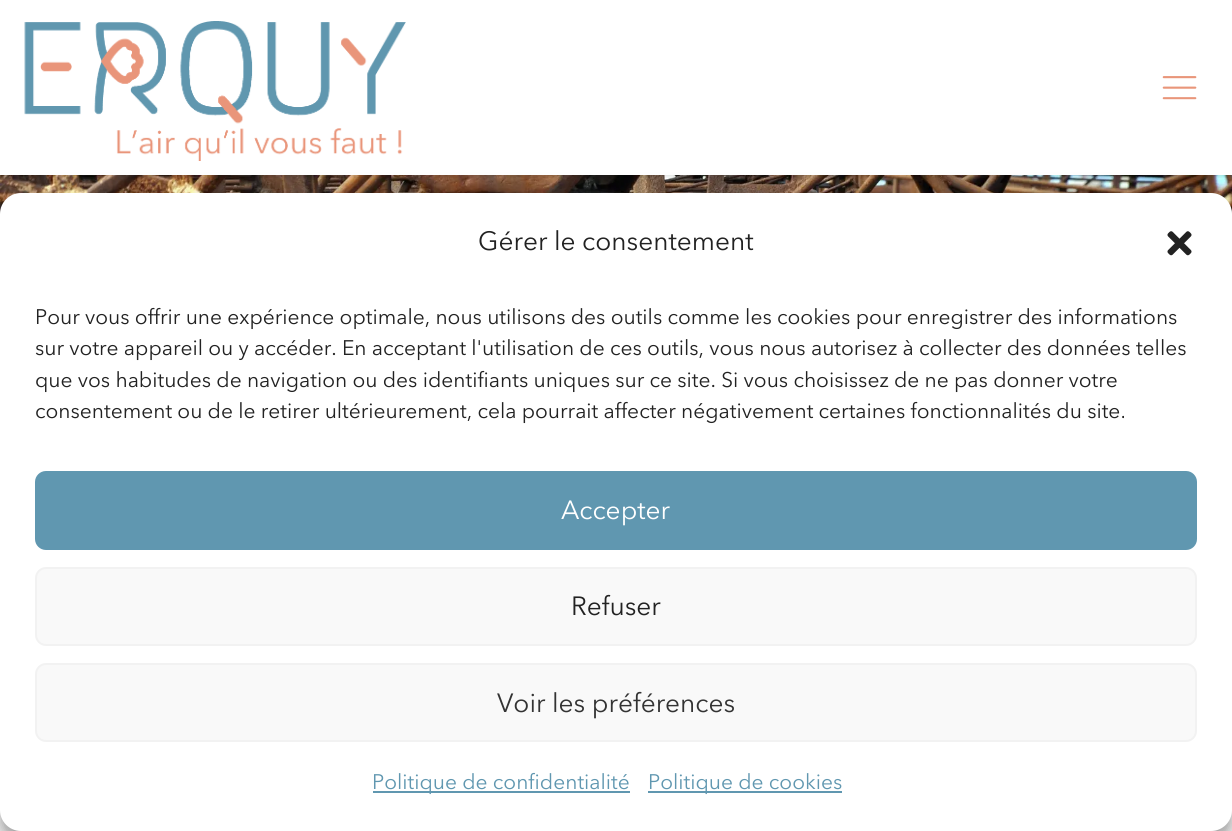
#include <cairo/cairo.h>
#include <math.h>
#include <stddef.h>

typedef struct { double x, y; const char *s; } line_t;
static cairo_t *cr;

static void rgb(unsigned color)
{
	cairo_set_source_rgb(cr, (color >> 16) / 255.0, (color >> 8 & 255) / 255.0, (color & 255) / 255.0);
}

static void rrect(double x, double y, double w, double h, double r)
{
	cairo_new_sub_path(cr);
	cairo_arc(cr, x + w - r, y + h - r, r, 0, M_PI / 2);
	cairo_arc(cr, x + r, y + h - r, r, M_PI / 2, M_PI);
	cairo_arc(cr, x + r, y + r, r, M_PI, 1.5 * M_PI);
	cairo_arc(cr, x + w - r, y + r, r, 1.5 * M_PI, 2 * M_PI);
	cairo_close_path(cr);
}

static void soft_shadow(double x, double y, double w, double h, double r, double blur, double alpha)
{
	cairo_push_group_with_content(cr, CAIRO_CONTENT_ALPHA);
	cairo_set_operator(cr, CAIRO_OPERATOR_SOURCE);
	for (int i = 15; i >= -15 && fmin(w, h) + blur * i / 3 > 0; i -= 2) {
		double e = blur * i / 6;
		cairo_set_source_rgba(cr, 0, 0, 0, alpha * erfc((i - 1) / 8.5) / 2);
		rrect(x - e, y - e, w + 2 * e, h + 2 * e, fmax(0, fmin(r + e + blur * .6, fmin(w, h) / 2 + e)));
		cairo_fill(cr);
	}
	cairo_pattern_t *soft = cairo_pop_group(cr);
	cairo_mask(cr, soft);
	cairo_pattern_destroy(soft);
}

static void image(const char *path, double x, double y, double w, double h)
{
	cairo_surface_t *image = cairo_image_surface_create_from_png(path);
	cairo_save(cr);
	cairo_set_source_surface(cr, image, x, y);
	cairo_rectangle(cr, x, y, w, h);
	cairo_fill(cr);
	cairo_restore(cr);
	cairo_surface_destroy(image);
}

int main(void) {
	cairo_surface_t *surface = cairo_image_surface_create(CAIRO_FORMAT_RGB24, 1232, 831);
	cr = cairo_create(surface);
	cairo_font_options_t *options = cairo_font_options_create();
	cairo_font_options_set_hint_metrics(options, CAIRO_HINT_METRICS_OFF);
	cairo_font_options_set_hint_style(options, CAIRO_HINT_STYLE_NONE);
	cairo_set_font_options(cr, options);
	cairo_set_miter_limit(cr, 4);
	rgb(0xffffff);
	cairo_paint(cr);
	image("img/3.png", 0, 175, 1232, 39);
	cairo_save(cr);
	cairo_rectangle(cr, 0, 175, 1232, 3);
	cairo_clip(cr);
	rgb(0x000000);
	soft_shadow(0, 0, 1232, 175, 0, 2.5, 0.2);
	cairo_restore(cr);
	image("img/1.png", 24, 21, 382, 140);
	image("img/2.png", 1162, 76, 35, 24);
	rgb(0x000000);
	soft_shadow(0, 203, 1232, 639, 21, 5, 0.23);
	soft_shadow(0, 210, 1232, 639, 21, 17.5, 0.19);
	rgb(0xffffff);
	rrect(0, 193, 1232, 638, 21);
	cairo_fill(cr);
	image("img/4.png", 1167, 231, 25, 25);
	rgb(0x6097b0);
	rrect(36, 472, 1160, 77, 10);
	cairo_fill_preserve(cr);
	cairo_stroke(cr);
	rgb(0xf9f9f9);
	rrect(36, 568, 1160, 77, 10);
	cairo_fill_preserve(cr);
	rgb(0xf2f2f2);
	cairo_stroke(cr);
	rgb(0xf9f9f9);
	rrect(36, 664, 1160, 77, 10);
	cairo_fill_preserve(cr);
	rgb(0xf2f2f2);
	cairo_stroke(cr);
	rgb(0x6097b0);
	cairo_rectangle(cr, 373, 791, 257, 2);
	cairo_fill(cr);
	cairo_rectangle(cr, 648, 791, 194, 2);
	cairo_fill(cr);
	cairo_select_font_face(cr, "Avenir Next", CAIRO_FONT_SLANT_NORMAL, CAIRO_FONT_WEIGHT_NORMAL);
	cairo_set_font_size(cr, 26.25);
	rgb(0x222222);
	cairo_move_to(cr, 478, 250);
	cairo_show_text(cr, "Gérer le consentement");
	cairo_set_font_size(cr, 21);
	{
		static const line_t items[] = {
			{35, 324, "Pour vous offrir une expérience optimale, nous utilisons des outils comme les cookies pour enregistrer des informations"},
			{35, 355, "sur votre appareil ou y accéder. En acceptant l'utilisation de ces outils, vous nous autorisez à collecter des données telles"},
			{35, 387, "que vos habitudes de navigation ou des identifiants uniques sur ce site. Si vous choisissez de ne pas donner votre"},
			{35, 418, "consentement ou de le retirer ultérieurement, cela pourrait affecter négativement certaines fonctionnalités du site."},
		};
		for (size_t i = 0; i < sizeof items / sizeof *items; i++) {
			cairo_move_to(cr, items[i].x, items[i].y);
			cairo_show_text(cr, items[i].s);
		}
	}
	cairo_set_font_size(cr, 26.25);
	rgb(0xffffff);
	cairo_move_to(cr, 561, 519);
	cairo_show_text(cr, "Accepter");
	rgb(0x222222);
	cairo_move_to(cr, 571, 615);
	cairo_show_text(cr, "Refuser");
	rgb(0x333333);
	cairo_move_to(cr, 497, 712);
	cairo_show_text(cr, "Voir les préférences");
	cairo_set_font_size(cr, 21);
	rgb(0x6097b0);
	cairo_move_to(cr, 372, 789);
	cairo_show_text(cr, "Politique de confidentialité");
	cairo_move_to(cr, 648, 789);
	cairo_show_text(cr, "Politique de cookies");
	cairo_surface_write_to_png(surface, "page.png");
	cairo_font_options_destroy(options);
	cairo_destroy(cr);
	cairo_surface_destroy(surface);
	return 0;
}
